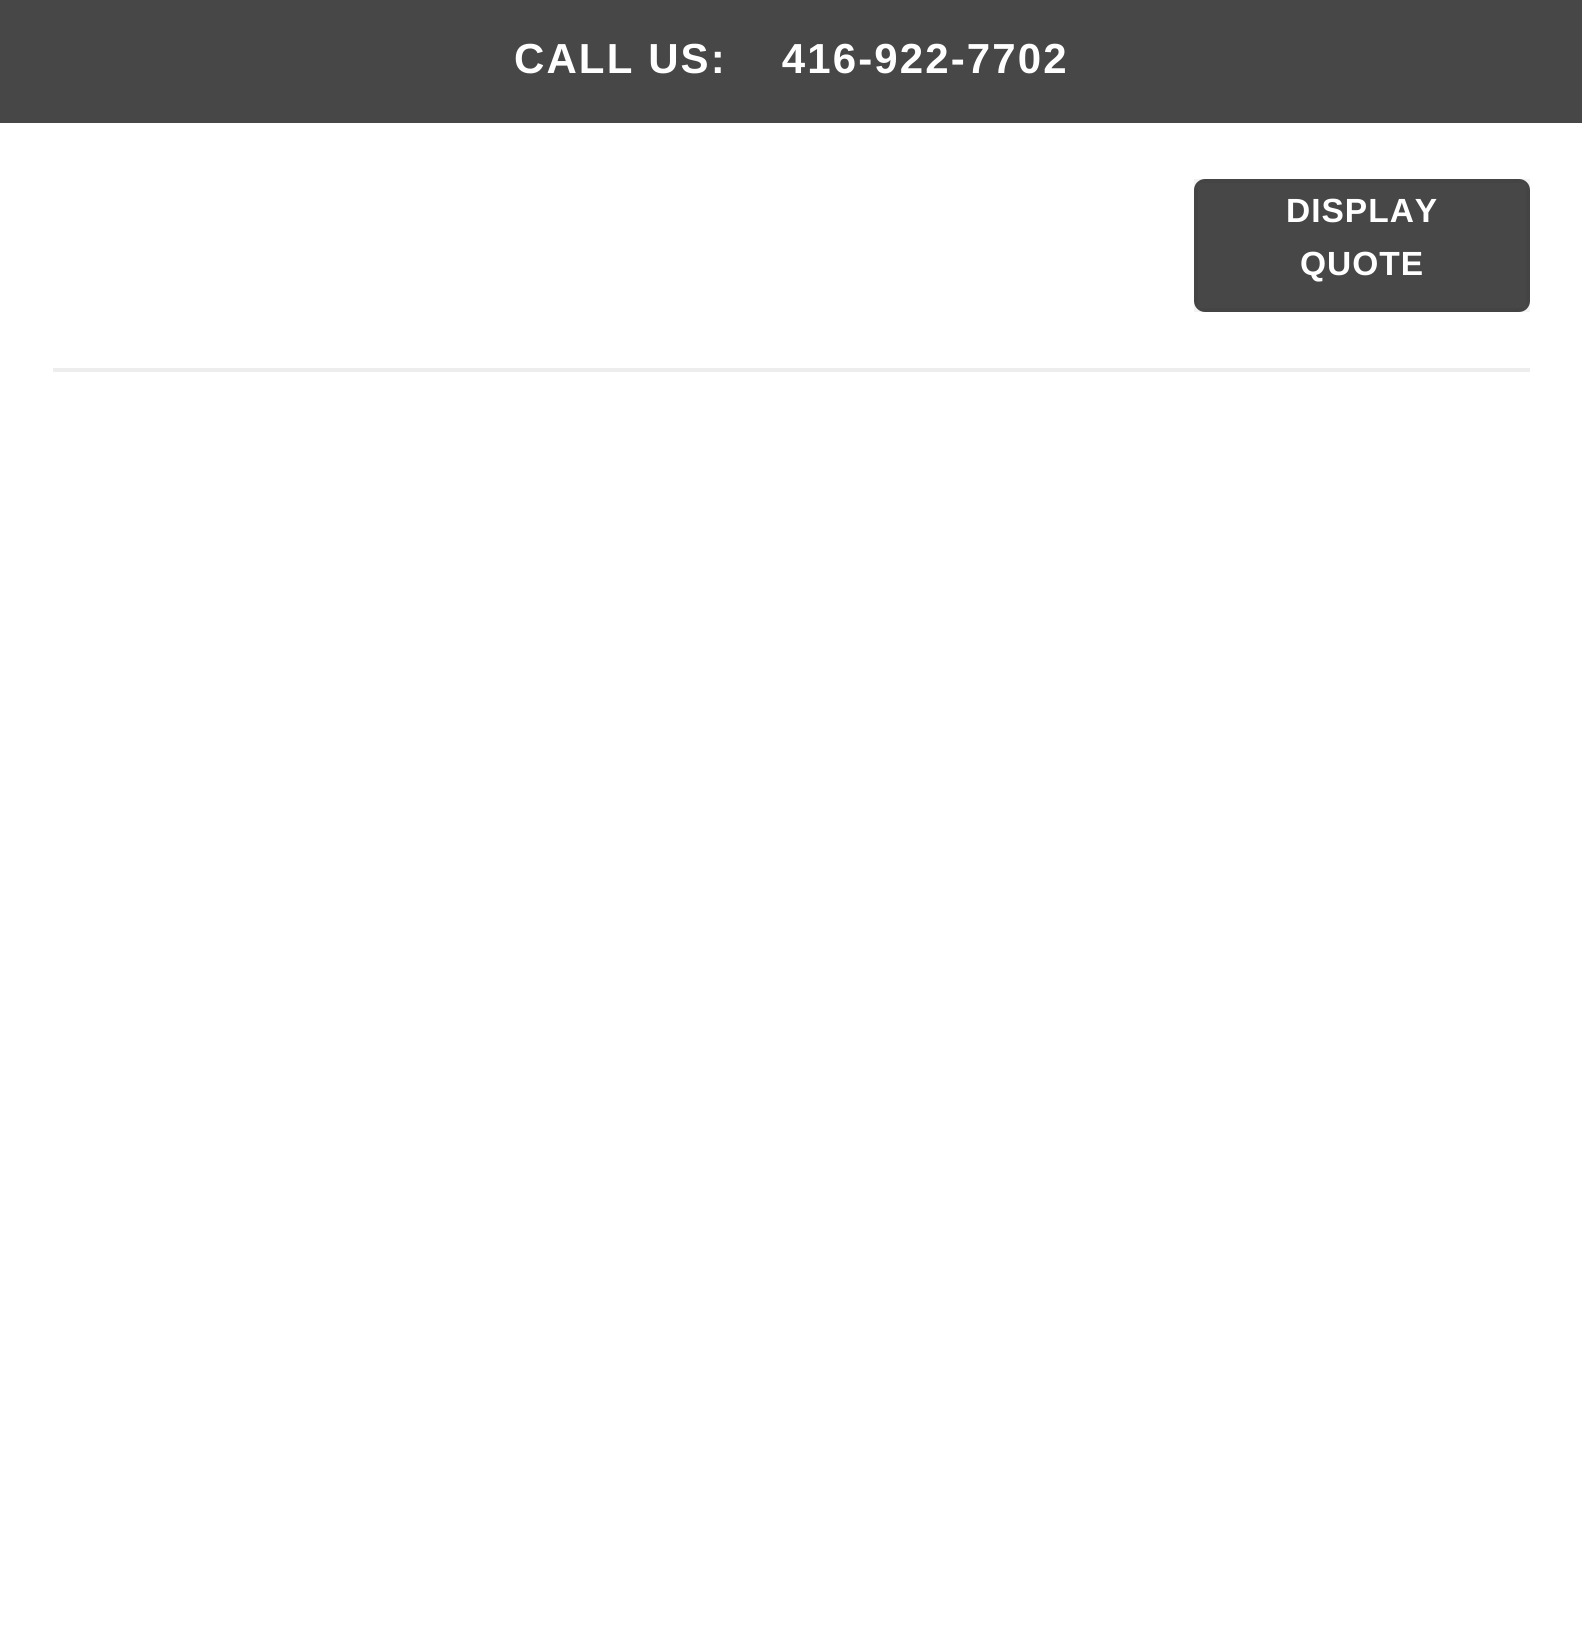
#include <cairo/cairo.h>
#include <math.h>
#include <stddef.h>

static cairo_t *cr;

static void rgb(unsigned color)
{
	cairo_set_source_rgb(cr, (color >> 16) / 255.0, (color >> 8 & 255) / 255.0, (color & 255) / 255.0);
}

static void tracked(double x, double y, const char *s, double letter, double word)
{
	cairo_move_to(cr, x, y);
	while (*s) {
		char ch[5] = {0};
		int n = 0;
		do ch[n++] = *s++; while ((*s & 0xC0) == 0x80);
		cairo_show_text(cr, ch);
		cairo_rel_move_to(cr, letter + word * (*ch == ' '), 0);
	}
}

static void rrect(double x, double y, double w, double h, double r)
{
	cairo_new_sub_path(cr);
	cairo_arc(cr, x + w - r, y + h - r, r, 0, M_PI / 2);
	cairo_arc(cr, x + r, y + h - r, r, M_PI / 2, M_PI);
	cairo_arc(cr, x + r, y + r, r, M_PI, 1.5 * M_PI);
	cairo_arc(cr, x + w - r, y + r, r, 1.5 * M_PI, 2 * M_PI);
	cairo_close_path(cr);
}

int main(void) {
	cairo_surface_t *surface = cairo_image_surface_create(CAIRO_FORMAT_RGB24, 1582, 1652);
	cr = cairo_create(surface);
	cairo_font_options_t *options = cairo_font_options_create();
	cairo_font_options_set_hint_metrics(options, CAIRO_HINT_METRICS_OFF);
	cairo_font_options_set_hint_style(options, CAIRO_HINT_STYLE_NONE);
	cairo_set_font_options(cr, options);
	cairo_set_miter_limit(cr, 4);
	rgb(0xffffff);
	cairo_paint(cr);
	rgb(0x474747);
	cairo_rectangle(cr, 0, 0, 1582, 123);
	cairo_fill(cr);
	rrect(1194, 179, 336, 133, 11);
	cairo_fill(cr);
	cairo_rectangle(cr, 1196, 181, 332, 129);
	cairo_set_source_rgba(cr, 0, 0, 0, 0.05);
	cairo_set_line_width(cr, 4);
	cairo_stroke(cr);
	rgb(0xededed);
	cairo_rectangle(cr, 53, 368, 1477, 4);
	cairo_fill(cr);
	cairo_select_font_face(cr, "Liberation Sans", CAIRO_FONT_SLANT_NORMAL, CAIRO_FONT_WEIGHT_BOLD);
	cairo_set_font_size(cr, 42);
	rgb(0xffffff);
	tracked(514, 73, "CALL US:    416-922-7702", 2.1, 0);
	cairo_set_font_size(cr, 33.5);
	tracked(1286, 222, "DISPLAY", 1, 0);
	tracked(1300, 275, "QUOTE", 1, 0);
	cairo_surface_write_to_png(surface, "page.png");
	cairo_font_options_destroy(options);
	cairo_destroy(cr);
	cairo_surface_destroy(surface);
	return 0;
}
